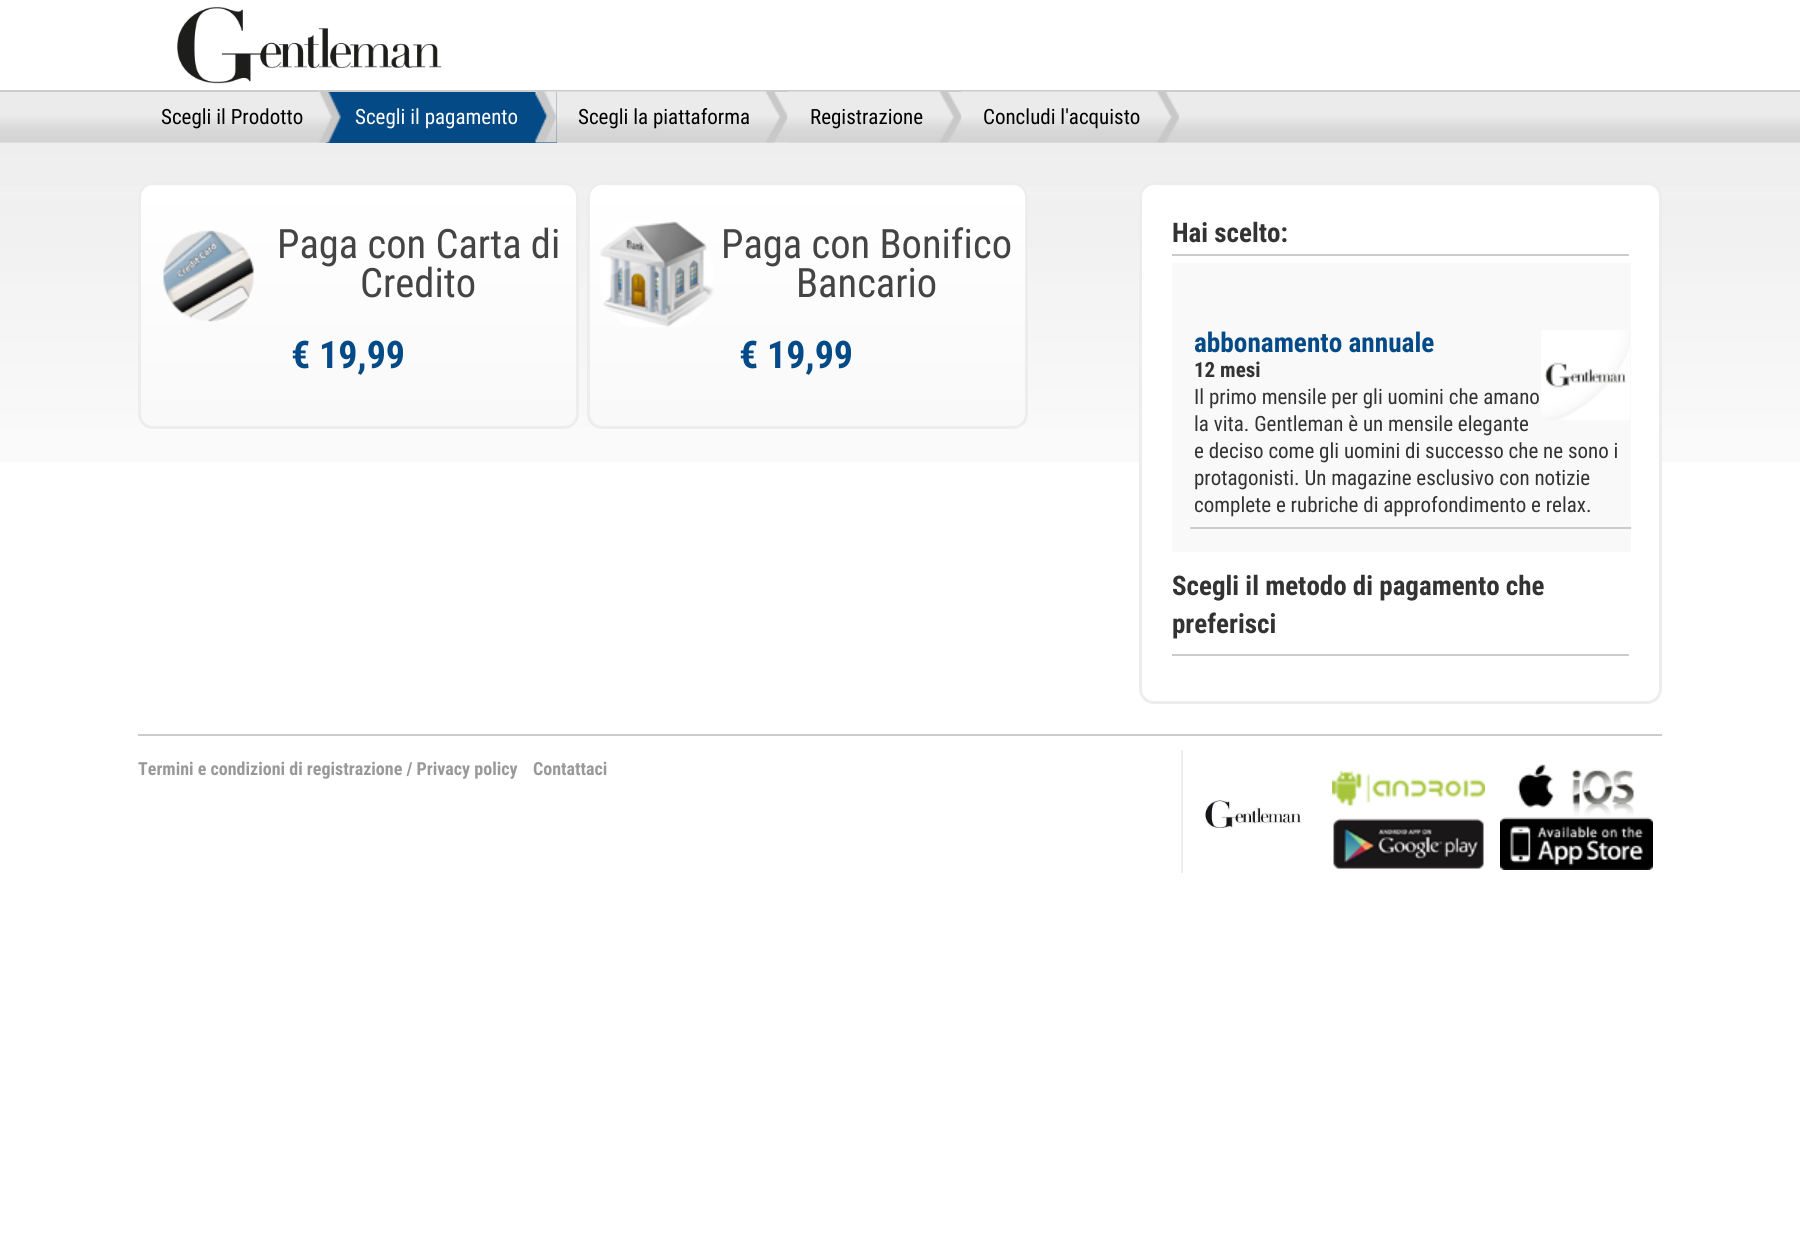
#include <cairo/cairo.h>
#include <math.h>
#include <stddef.h>

typedef struct { double x, y; const char *s; } line_t;
typedef struct { double x, y, w, h; unsigned color; } box_t;
static cairo_t *cr;

static void rgb(unsigned color)
{
	cairo_set_source_rgb(cr, (color >> 16) / 255.0, (color >> 8 & 255) / 255.0, (color & 255) / 255.0);
}

static void rrect(double x, double y, double w, double h, double r)
{
	cairo_new_sub_path(cr);
	cairo_arc(cr, x + w - r, y + h - r, r, 0, M_PI / 2);
	cairo_arc(cr, x + r, y + h - r, r, M_PI / 2, M_PI);
	cairo_arc(cr, x + r, y + r, r, M_PI, 1.5 * M_PI);
	cairo_arc(cr, x + w - r, y + r, r, 1.5 * M_PI, 2 * M_PI);
	cairo_close_path(cr);
}

static void image(const char *path, double x, double y, double w, double h)
{
	cairo_surface_t *image = cairo_image_surface_create_from_png(path);
	cairo_save(cr);
	cairo_set_source_surface(cr, image, x, y);
	cairo_rectangle(cr, x, y, w, h);
	cairo_fill(cr);
	cairo_restore(cr);
	cairo_surface_destroy(image);
}

int main(void) {
	cairo_surface_t *surface = cairo_image_surface_create(CAIRO_FORMAT_RGB24, 1800, 1238);
	cr = cairo_create(surface);
	cairo_font_options_t *options = cairo_font_options_create();
	cairo_font_options_set_hint_metrics(options, CAIRO_HINT_METRICS_OFF);
	cairo_font_options_set_hint_style(options, CAIRO_HINT_STYLE_NONE);
	cairo_set_font_options(cr, options);
	cairo_set_miter_limit(cr, 4);
	cairo_pattern_t *gradient;
	rgb(0xffffff);
	cairo_paint(cr);
	image("img/1.png", 177, 6, 265, 78);
	image("img/2.png", 0, 92, 1800, 51);
	rgb(0xcccccc);
	cairo_rectangle(cr, 0, 90, 1800, 2);
	cairo_fill(cr);
	rgb(0x044a86);
	cairo_rectangle(cr, 326, 92, 231, 51);
	cairo_fill(cr);
	image("img/3.png", 318, 91, 23, 52);
	image("img/4.png", 535, 91, 22, 52);
	image("img/5.png", 556, 91, 232, 52);
	image("img/6.png", 787, 91, 175, 52);
	image("img/7.png", 961, 91, 218, 52);
	image("img/8.png", 0, 143, 1800, 319);
	cairo_save(cr);
	rrect(138, 182, 441, 247, 15);
	cairo_clip(cr);
	gradient = cairo_pattern_create_linear(359, 184, 359, 426);
	cairo_pattern_add_color_stop_rgba(gradient, 0, 1, 1, 1, 1);
	cairo_pattern_add_color_stop_rgba(gradient, 1, 0.976, 0.976, 0.976, 1);
	cairo_set_source(cr, gradient);
	cairo_pattern_destroy(gradient);
	cairo_rectangle(cr, 138, 185, 441, 241);
	cairo_fill(cr);
	cairo_restore(cr);
	rrect(139.5, 183.5, 438, 244, 13.5);
	rgb(0xededed);
	cairo_set_line_width(cr, 3);
	cairo_stroke(cr);
	image("img/9.png", 163, 230, 91, 92);
	cairo_save(cr);
	rrect(587, 182, 441, 247, 15);
	cairo_clip(cr);
	gradient = cairo_pattern_create_linear(807, 184, 807, 426);
	cairo_pattern_add_color_stop_rgba(gradient, 0, 1, 1, 1, 1);
	cairo_pattern_add_color_stop_rgba(gradient, 1, 0.976, 0.976, 0.976, 1);
	cairo_set_source(cr, gradient);
	cairo_pattern_destroy(gradient);
	cairo_rectangle(cr, 587, 185, 441, 241);
	cairo_fill(cr);
	cairo_restore(cr);
	rrect(588.5, 183.5, 438, 244, 13.5);
	cairo_stroke(cr);
	image("img/10.png", 600, 221, 114, 106);
	rgb(0xffffff);
	rrect(1140.5, 183.5, 520, 519, 13.5);
	cairo_fill_preserve(cr);
	rgb(0xededed);
	cairo_stroke(cr);
	{
		static const box_t items[] = {
			{1172, 254, 457, 2, 0xcccccc},
			{1172, 263, 459, 289, 0xf9f9f9},
			{1190, 527, 441, 2, 0xcccccc},
		};
		for (size_t i = 0; i < sizeof items / sizeof *items; i++) {
			rgb(items[i].color);
			cairo_rectangle(cr, items[i].x, items[i].y, items[i].w, items[i].h);
			cairo_fill(cr);
		}
	}
	image("img/11.png", 1541, 330, 89, 90);
	{
		static const box_t items[] = {
			{1172, 654, 457, 2, 0xcccccc},
			{138, 734, 1524, 2, 0xcccccc},
			{1181, 750, 2, 123, 0xededed},
		};
		for (size_t i = 0; i < sizeof items / sizeof *items; i++) {
			rgb(items[i].color);
			cairo_rectangle(cr, items[i].x, items[i].y, items[i].w, items[i].h);
			cairo_fill(cr);
		}
	}
	image("img/12.png", 1204, 800, 98, 29);
	image("img/13.png", 1332, 770, 153, 99);
	image("img/14.png", 1500, 764, 153, 106);
	cairo_select_font_face(cr, "Roboto Condensed", CAIRO_FONT_SLANT_NORMAL, CAIRO_FONT_WEIGHT_NORMAL);
	cairo_set_font_size(cr, 21);
	rgb(0x000000);
	cairo_move_to(cr, 161, 124);
	cairo_show_text(cr, "Scegli il Prodotto");
	rgb(0xffffff);
	cairo_move_to(cr, 355, 124);
	cairo_show_text(cr, "Scegli il pagamento");
	rgb(0x000000);
	{
		static const line_t items[] = {
			{578, 124, "Scegli la piattaforma"},
			{810, 124, "Registrazione"},
			{983, 124, "Concludi l'acquisto"},
		};
		for (size_t i = 0; i < sizeof items / sizeof *items; i++) {
			cairo_move_to(cr, items[i].x, items[i].y);
			cairo_show_text(cr, items[i].s);
		}
	}
	cairo_set_font_size(cr, 40.5);
	rgb(0x444444);
	cairo_move_to(cr, 277, 258);
	cairo_show_text(cr, "Paga con Carta di");
	cairo_move_to(cr, 360, 297);
	cairo_show_text(cr, "Credito");
	cairo_select_font_face(cr, "Roboto Condensed", CAIRO_FONT_SLANT_NORMAL, CAIRO_FONT_WEIGHT_BOLD);
	cairo_set_font_size(cr, 38);
	rgb(0x044a86);
	cairo_move_to(cr, 291, 368);
	cairo_show_text(cr, "€ 19,99");
	cairo_select_font_face(cr, "Roboto Condensed", CAIRO_FONT_SLANT_NORMAL, CAIRO_FONT_WEIGHT_NORMAL);
	cairo_set_font_size(cr, 40.5);
	rgb(0x444444);
	cairo_move_to(cr, 721, 258);
	cairo_show_text(cr, "Paga con Bonifico");
	cairo_move_to(cr, 796, 297);
	cairo_show_text(cr, "Bancario");
	cairo_select_font_face(cr, "Roboto Condensed", CAIRO_FONT_SLANT_NORMAL, CAIRO_FONT_WEIGHT_BOLD);
	cairo_set_font_size(cr, 38);
	rgb(0x044a86);
	cairo_move_to(cr, 739, 368);
	cairo_show_text(cr, "€ 19,99");
	cairo_set_font_size(cr, 27);
	rgb(0x333333);
	cairo_move_to(cr, 1172, 242);
	cairo_show_text(cr, "Hai scelto:");
	cairo_set_font_size(cr, 27.25);
	rgb(0x044a86);
	cairo_move_to(cr, 1194, 352);
	cairo_show_text(cr, "abbonamento annuale");
	cairo_set_font_size(cr, 21);
	rgb(0x333333);
	cairo_move_to(cr, 1194, 377);
	cairo_show_text(cr, "12 mesi");
	cairo_select_font_face(cr, "Roboto Condensed", CAIRO_FONT_SLANT_NORMAL, CAIRO_FONT_WEIGHT_NORMAL);
	{
		static const line_t items[] = {
			{1194, 404, "Il primo mensile per gli uomini che amano"},
			{1194, 431, "la vita. Gentleman è un mensile elegante"},
			{1194, 458, "e deciso come gli uomini di successo che ne sono i"},
			{1194, 485, "protagonisti. Un magazine esclusivo con notizie"},
			{1194, 512, "complete e rubriche di approfondimento e relax."},
		};
		for (size_t i = 0; i < sizeof items / sizeof *items; i++) {
			cairo_move_to(cr, items[i].x, items[i].y);
			cairo_show_text(cr, items[i].s);
		}
	}
	cairo_select_font_face(cr, "Roboto Condensed", CAIRO_FONT_SLANT_NORMAL, CAIRO_FONT_WEIGHT_BOLD);
	cairo_set_font_size(cr, 27);
	cairo_move_to(cr, 1172, 595);
	cairo_show_text(cr, "Scegli il metodo di pagamento che");
	cairo_move_to(cr, 1172, 633);
	cairo_show_text(cr, "preferisci");
	cairo_set_font_size(cr, 18);
	rgb(0x999999);
	cairo_move_to(cr, 138, 775);
	cairo_show_text(cr, "Termini e condizioni di registrazione / Privacy policy");
	cairo_move_to(cr, 533, 775);
	cairo_show_text(cr, "Contattaci");
	cairo_surface_write_to_png(surface, "page.png");
	cairo_font_options_destroy(options);
	cairo_destroy(cr);
	cairo_surface_destroy(surface);
	return 0;
}
